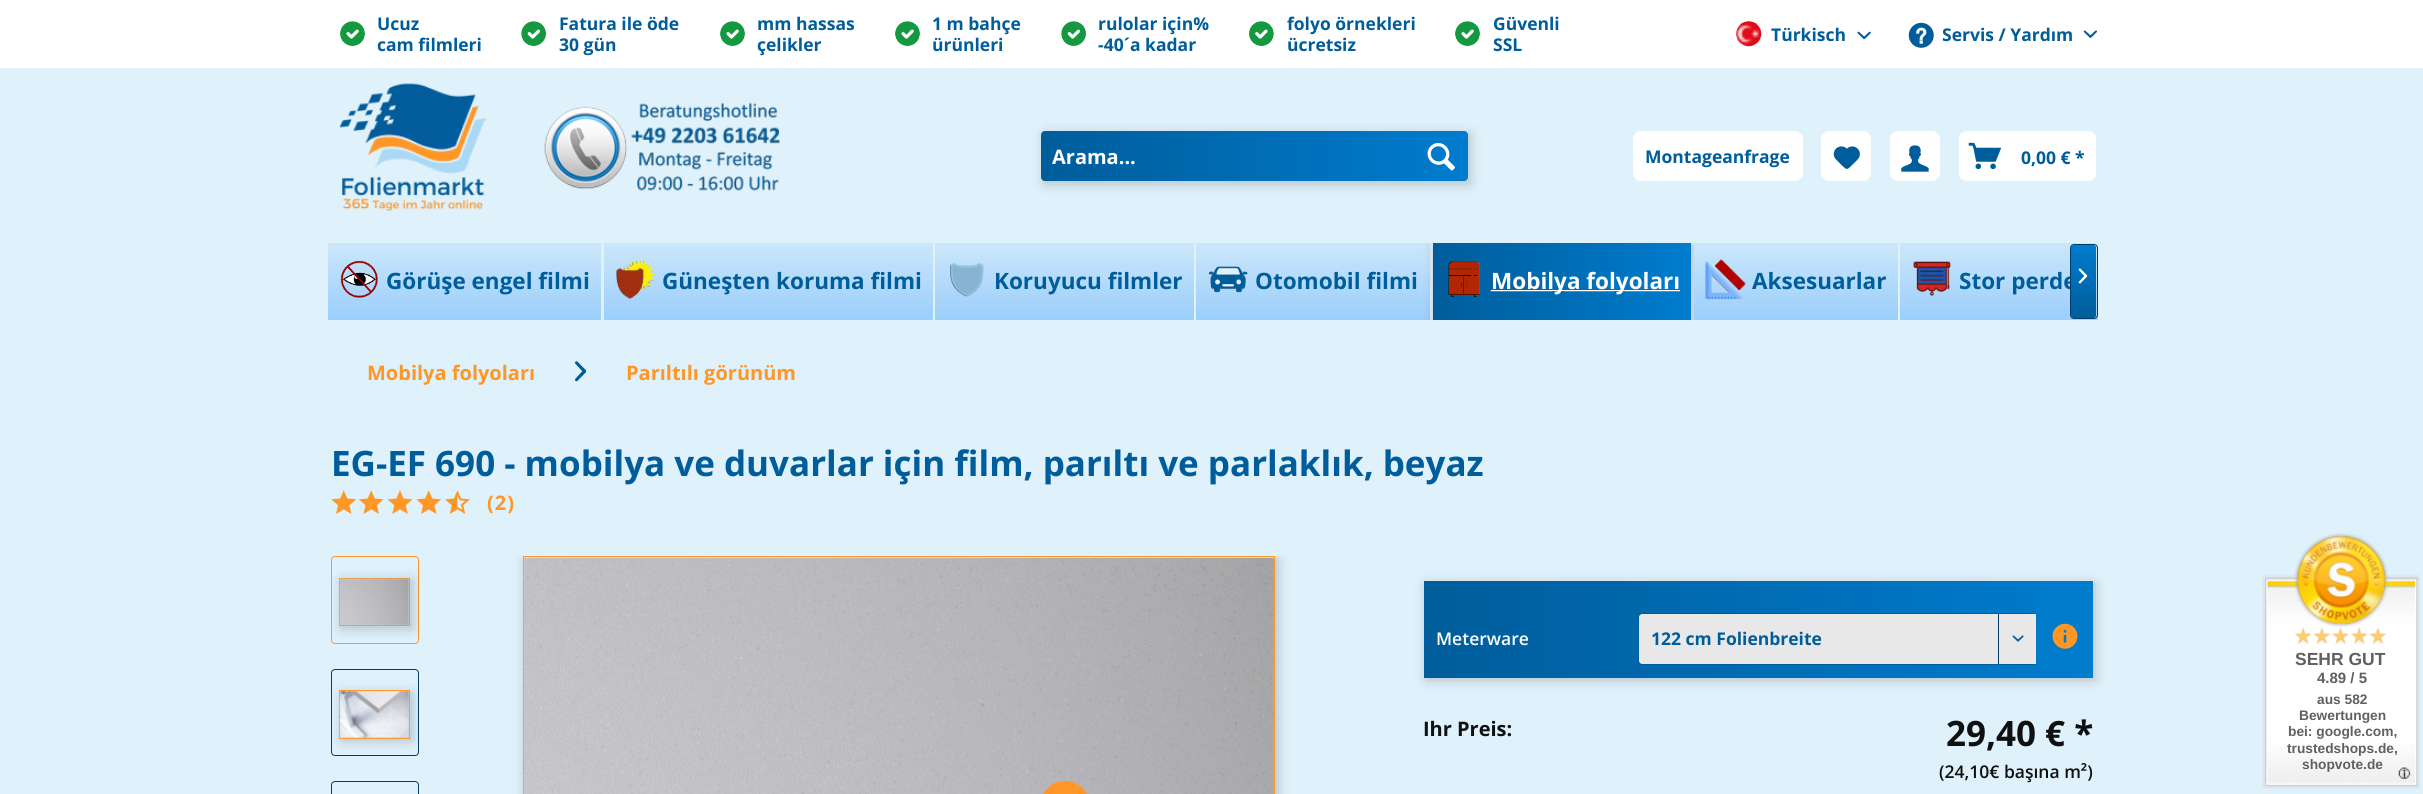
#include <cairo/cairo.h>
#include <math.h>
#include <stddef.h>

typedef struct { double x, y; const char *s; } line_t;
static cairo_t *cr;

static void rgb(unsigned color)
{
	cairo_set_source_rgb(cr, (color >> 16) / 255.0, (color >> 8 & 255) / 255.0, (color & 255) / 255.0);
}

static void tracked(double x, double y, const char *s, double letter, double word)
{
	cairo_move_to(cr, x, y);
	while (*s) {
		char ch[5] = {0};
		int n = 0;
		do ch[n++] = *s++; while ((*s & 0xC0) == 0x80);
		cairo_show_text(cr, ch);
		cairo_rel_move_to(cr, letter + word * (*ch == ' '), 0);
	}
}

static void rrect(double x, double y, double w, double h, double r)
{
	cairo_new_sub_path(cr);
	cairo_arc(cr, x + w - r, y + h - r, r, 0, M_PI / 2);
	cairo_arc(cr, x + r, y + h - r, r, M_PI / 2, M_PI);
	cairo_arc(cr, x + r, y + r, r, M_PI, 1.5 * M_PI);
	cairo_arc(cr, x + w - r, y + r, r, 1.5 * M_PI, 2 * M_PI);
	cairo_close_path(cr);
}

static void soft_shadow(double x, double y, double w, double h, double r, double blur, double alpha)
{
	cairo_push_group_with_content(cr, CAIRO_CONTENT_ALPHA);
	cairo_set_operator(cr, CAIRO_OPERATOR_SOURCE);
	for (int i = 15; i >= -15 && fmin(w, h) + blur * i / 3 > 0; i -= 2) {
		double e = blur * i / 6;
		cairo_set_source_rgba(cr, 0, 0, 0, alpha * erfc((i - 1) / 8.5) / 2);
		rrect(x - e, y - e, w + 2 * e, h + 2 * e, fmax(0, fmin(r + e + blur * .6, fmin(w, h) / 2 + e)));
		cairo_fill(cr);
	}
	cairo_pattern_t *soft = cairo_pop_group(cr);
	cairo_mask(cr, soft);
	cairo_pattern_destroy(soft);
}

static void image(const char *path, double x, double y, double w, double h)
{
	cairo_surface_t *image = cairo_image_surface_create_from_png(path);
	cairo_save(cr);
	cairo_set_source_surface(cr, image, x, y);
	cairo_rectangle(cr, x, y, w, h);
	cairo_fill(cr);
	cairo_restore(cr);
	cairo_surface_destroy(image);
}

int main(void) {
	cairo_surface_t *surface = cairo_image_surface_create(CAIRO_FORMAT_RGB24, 2423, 794);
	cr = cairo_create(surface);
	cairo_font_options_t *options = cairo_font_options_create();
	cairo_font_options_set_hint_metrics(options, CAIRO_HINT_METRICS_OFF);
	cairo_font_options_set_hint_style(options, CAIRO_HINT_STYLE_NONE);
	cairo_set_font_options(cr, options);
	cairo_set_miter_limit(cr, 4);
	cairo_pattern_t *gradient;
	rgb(0xdff1fb);
	cairo_paint(cr);
	rgb(0xffffff);
	cairo_rectangle(cr, 0, 0, 2423, 68);
	cairo_fill(cr);
	image("img/1.png", 340, 21, 25, 25);
	image("img/2.png", 521, 21, 25, 25);
	image("img/1.png", 720, 21, 25, 25);
	image("img/1.png", 895, 21, 25, 25);
	image("img/2.png", 1061, 21, 25, 25);
	image("img/3.png", 1249, 21, 25, 25);
	image("img/1.png", 1455, 21, 25, 25);
	image("img/4.png", 1736, 21, 26, 26);
	image("img/5.png", 1857, 31, 14, 9);
	image("img/6.png", 1908, 22, 26, 26);
	image("img/7.png", 2083, 30, 14, 8);
	image("img/8.png", 340, 83, 440, 129);
	rgb(0x000000);
	soft_shadow(1044, 134, 426, 50, 0, 6, 0.2);
	gradient = cairo_pattern_create_linear(1041, 156, 1468, 156);
	cairo_pattern_add_color_stop_rgba(gradient, 0, 0, 0.365, 0.608, 1);
	cairo_pattern_add_color_stop_rgba(gradient, 1, 0, 0.486, 0.808, 1);
	cairo_set_source(cr, gradient);
	cairo_pattern_destroy(gradient);
	rrect(1041, 131, 427, 50, 4);
	cairo_fill(cr);
	image("img/9.png", 1427, 143, 28, 28);
	rgb(0xffffff);
	rrect(1633, 131, 170, 50, 8);
	cairo_fill(cr);
	rrect(1821, 131, 50, 50, 8);
	cairo_fill(cr);
	image("img/10.png", 1833, 146, 27, 23);
	rrect(1890, 131, 50, 50, 8);
	cairo_fill(cr);
	image("img/11.png", 1901, 145, 28, 27);
	rrect(1959, 131, 137, 50, 8);
	cairo_fill(cr);
	image("img/12.png", 1968, 142, 34, 28);
	gradient = cairo_pattern_create_linear(464, 243, 464, 320);
	cairo_pattern_add_color_stop_rgba(gradient, 0.05, 0.788, 0.902, 0.98, 1);
	cairo_pattern_add_color_stop_rgba(gradient, 1, 0.608, 0.808, 0.988, 1);
	cairo_set_source(cr, gradient);
	cairo_pattern_destroy(gradient);
	cairo_rectangle(cr, 328, 243, 273, 77);
	cairo_fill(cr);
	image("img/13.png", 340, 260, 38, 38);
	gradient = cairo_pattern_create_linear(768, 242, 768, 320);
	cairo_pattern_add_color_stop_rgba(gradient, 0.05, 0.788, 0.902, 0.98, 1);
	cairo_pattern_add_color_stop_rgba(gradient, 1, 0.608, 0.808, 0.988, 1);
	cairo_set_source(cr, gradient);
	cairo_pattern_destroy(gradient);
	cairo_rectangle(cr, 604, 243, 329, 77);
	cairo_fill(cr);
	image("img/14.png", 616, 259, 40, 41);
	gradient = cairo_pattern_create_linear(1064, 243, 1064, 320);
	cairo_pattern_add_color_stop_rgba(gradient, 0.05, 0.788, 0.902, 0.98, 1);
	cairo_pattern_add_color_stop_rgba(gradient, 1, 0.608, 0.808, 0.988, 1);
	cairo_set_source(cr, gradient);
	cairo_pattern_destroy(gradient);
	cairo_rectangle(cr, 935, 243, 259, 77);
	cairo_fill(cr);
	image("img/15.png", 950, 262, 34, 35);
	gradient = cairo_pattern_create_linear(1313, 243, 1313, 320);
	cairo_pattern_add_color_stop_rgba(gradient, 0.05, 0.788, 0.902, 0.98, 1);
	cairo_pattern_add_color_stop_rgba(gradient, 1, 0.608, 0.808, 0.988, 1);
	cairo_set_source(cr, gradient);
	cairo_pattern_destroy(gradient);
	cairo_rectangle(cr, 1196, 243, 234, 77);
	cairo_fill(cr);
	image("img/16.png", 1209, 266, 39, 27);
	cairo_save(cr);
	cairo_rectangle(cr, 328, 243, 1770, 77);
	cairo_clip(cr);
	rgb(0x000000);
	soft_shadow(1435, 245, 259, 78, 0, 6, 0.2);
	cairo_restore(cr);
	gradient = cairo_pattern_create_linear(1433, 281, 1691, 281);
	cairo_pattern_add_color_stop_rgba(gradient, 0, 0, 0.365, 0.608, 1);
	cairo_pattern_add_color_stop_rgba(gradient, 1, 0, 0.486, 0.808, 1);
	cairo_set_source(cr, gradient);
	cairo_pattern_destroy(gradient);
	cairo_rectangle(cr, 1433, 243, 258, 77);
	cairo_fill(cr);
	image("img/17.png", 1448, 261, 232, 36);
	rgb(0xffffff);
	cairo_rectangle(cr, 1552, 290, 128, 1);
	cairo_fill(cr);
	gradient = cairo_pattern_create_linear(1796, 243, 1796, 320);
	cairo_pattern_add_color_stop_rgba(gradient, 0.05, 0.788, 0.902, 0.98, 1);
	cairo_pattern_add_color_stop_rgba(gradient, 1, 0.608, 0.808, 0.988, 1);
	cairo_set_source(cr, gradient);
	cairo_pattern_destroy(gradient);
	cairo_rectangle(cr, 1694, 243, 204, 77);
	cairo_fill(cr);
	image("img/18.png", 1705, 259, 41, 41);
	gradient = cairo_pattern_create_linear(2063, 243, 2063, 320);
	cairo_pattern_add_color_stop_rgba(gradient, 0.05, 0.788, 0.902, 0.98, 1);
	cairo_pattern_add_color_stop_rgba(gradient, 1, 0.608, 0.808, 0.988, 1);
	cairo_set_source(cr, gradient);
	cairo_pattern_destroy(gradient);
	cairo_rectangle(cr, 1900, 243, 198, 77);
	cairo_fill(cr);
	image("img/19.png", 1913, 261, 38, 35);
	image("img/21.png", 575, 361, 11, 21);
	image("img/22.png", 331, 490, 25, 24);
	image("img/23.png", 358, 490, 26, 24);
	image("img/24.png", 387, 490, 26, 24);
	image("img/22.png", 416, 490, 25, 24);
	image("img/25.png", 445, 490, 25, 24);
	rrect(331.5, 556.5, 87, 87, 3.5);
	rgb(0xff9727);
	cairo_set_line_width(cr, 1);
	cairo_stroke(cr);
	cairo_save(cr);
	cairo_rectangle(cr, 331, 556, 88, 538);
	cairo_clip(cr);
	rgb(0x000000);
	soft_shadow(341, 580, 72, 49, 0, 6, 0.2);
	cairo_restore(cr);
	cairo_rectangle(cr, 339.5, 578.5, 70, 47);
	cairo_stroke(cr);
	image("img/26.png", 339, 578, 71, 48);
	rrect(331.5, 669.5, 87, 86, 3.5);
	rgb(0x003e68);
	cairo_stroke(cr);
	cairo_save(cr);
	cairo_rectangle(cr, 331, 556, 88, 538);
	cairo_clip(cr);
	rgb(0x000000);
	soft_shadow(341, 693, 72, 48, 0, 6, 0.2);
	cairo_restore(cr);
	cairo_rectangle(cr, 339.5, 690.5, 70, 48);
	rgb(0xff9727);
	cairo_stroke(cr);
	image("img/27.png", 339, 691, 71, 48);
	rrect(331.5, 781.5, 87, 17, 3.5);
	rgb(0x003e68);
	cairo_stroke(cr);
	cairo_save(cr);
	cairo_rectangle(cr, 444, 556, 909, 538);
	cairo_clip(cr);
	rgb(0x000000);
	soft_shadow(525, 559, 753, 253, 0, 6, 0.2);
	cairo_restore(cr);
	cairo_rectangle(cr, 523.5, 556.5, 751, 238);
	rgb(0xff9727);
	cairo_stroke(cr);
	image("img/28.png", 523, 558, 751, 236);
	rrect(1040, 781, 50, 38, 25);
	cairo_fill(cr);
	rgb(0x000000);
	soft_shadow(1426, 584, 669, 96, 0, 6, 0.2);
	gradient = cairo_pattern_create_linear(1424, 629, 2093, 629);
	cairo_pattern_add_color_stop_rgba(gradient, 0, 0, 0.365, 0.608, 1);
	cairo_pattern_add_color_stop_rgba(gradient, 1, 0, 0.486, 0.808, 1);
	cairo_set_source(cr, gradient);
	cairo_pattern_destroy(gradient);
	cairo_rectangle(cr, 1424, 581, 669, 97);
	cairo_fill(cr);
	image("img/30.png", 2052, 623, 26, 26);
	cairo_save(cr);
	cairo_rectangle(cr, 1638, 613, 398, 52);
	cairo_clip(cr);
	rgb(0x000000);
	soft_shadow(1640, 615, 399, 53, 4, 6, 0.2);
	cairo_restore(cr);
	rgb(0xe8e8e8);
	rrect(1639, 614, 396, 50, 2.5);
	cairo_fill(cr);
	rrect(1638.5, 613.5, 397, 51, 3.5);
	rgb(0x005d9b);
	cairo_stroke(cr);
	rgb(0xe8e8e8);
	cairo_rectangle(cr, 2032, 614, 4, 50);
	cairo_fill(cr);
	rgb(0x003e68);
	cairo_rectangle(cr, 1998, 614, 1, 50);
	cairo_fill(cr);
	image("img/29.png", 2012, 635, 12, 7);
	image("img/31.png", 2262, 533, 158, 256);
	image("img/32.png", 2295, 627, 90, 17);
	cairo_select_font_face(cr, "Open Sans", CAIRO_FONT_SLANT_NORMAL, CAIRO_FONT_WEIGHT_BOLD);
	cairo_set_font_size(cr, 17.5);
	rgb(0x005d9b);
	{
		static const line_t items[] = {
			{377, 30, "Ucuz"},
			{377, 51, "cam filmleri"},
			{559, 30, "Fatura ile öde"},
			{559, 51, "30 gün"},
			{757, 30, "mm hassas"},
			{757, 51, "çelikler"},
			{932, 30, "1 m bahçe"},
			{932, 51, "ürünleri"},
			{1098, 30, "rulolar için%"},
			{1098, 51, "-40´a kadar"},
			{1287, 30, "folyo örnekleri"},
			{1287, 51, "ücretsiz"},
			{1493, 30, "Güvenli"},
			{1493, 51, "SSL"},
			{1771, 41, "Türkisch"},
			{1942, 41, "Servis / Yardım"},
		};
		for (size_t i = 0; i < sizeof items / sizeof *items; i++) {
			cairo_move_to(cr, items[i].x, items[i].y);
			cairo_show_text(cr, items[i].s);
		}
	}
	cairo_set_font_size(cr, 20);
	rgb(0xffffff);
	cairo_move_to(cr, 1052, 164);
	cairo_show_text(cr, "Arama...");
	cairo_set_font_size(cr, 17.5);
	rgb(0x005d9b);
	cairo_move_to(cr, 1645, 163);
	cairo_show_text(cr, "Montageanfrage");
	cairo_move_to(cr, 2021, 164);
	cairo_show_text(cr, "0,00 € *");
	cairo_set_font_size(cr, 22.5);
	{
		static const line_t items[] = {
			{386, 289, "Görüşe engel filmi"},
			{662, 289, "Güneşten koruma filmi"},
			{994, 289, "Koruyucu filmler"},
			{1255, 289, "Otomobil filmi"},
		};
		for (size_t i = 0; i < sizeof items / sizeof *items; i++) {
			cairo_move_to(cr, items[i].x, items[i].y);
			cairo_show_text(cr, items[i].s);
		}
	}
	rgb(0xffffff);
	cairo_move_to(cr, 1491, 289);
	cairo_show_text(cr, "Mobilya folyoları");
	rgb(0x005d9b);
	cairo_move_to(cr, 1752, 289);
	cairo_show_text(cr, "Aksesuarlar");
	cairo_move_to(cr, 1959, 289);
	cairo_show_text(cr, "Stor perde");
	gradient = cairo_pattern_create_linear(2084, 245, 2084, 318);
	cairo_pattern_add_color_stop_rgba(gradient, 0, 0, 0.486, 0.808, 1);
	cairo_pattern_add_color_stop_rgba(gradient, 1, 0, 0.365, 0.608, 1);
	cairo_set_source(cr, gradient);
	cairo_pattern_destroy(gradient);
	rrect(2071, 245, 25, 73, 2.5);
	cairo_fill(cr);
	rrect(2070.5, 244.5, 27, 74, 3.5);
	rgb(0x003e68);
	cairo_stroke(cr);
	image("img/20.png", 2078, 268, 10, 16);
	cairo_set_font_size(cr, 20);
	rgb(0xff9727);
	cairo_move_to(cr, 367, 380);
	cairo_show_text(cr, "Mobilya folyoları");
	cairo_move_to(cr, 626, 380);
	cairo_show_text(cr, "Parıltılı görünüm");
	cairo_set_font_size(cr, 35);
	rgb(0x005d9b);
	cairo_move_to(cr, 331, 476);
	cairo_show_text(cr, "EG-EF 690 - mobilya ve duvarlar için film, parıltı ve parlaklık, beyaz");
	cairo_set_font_size(cr, 20);
	rgb(0xff9727);
	tracked(487, 510, "(2)", 1, 0);
	cairo_select_font_face(cr, "Open Sans SemiBold", CAIRO_FONT_SLANT_NORMAL, CAIRO_FONT_WEIGHT_NORMAL);
	cairo_set_font_size(cr, 17.5);
	rgb(0xffffff);
	cairo_move_to(cr, 1436, 645);
	cairo_show_text(cr, "Meterware");
	cairo_select_font_face(cr, "Open Sans", CAIRO_FONT_SLANT_NORMAL, CAIRO_FONT_WEIGHT_BOLD);
	rgb(0x005d9b);
	cairo_move_to(cr, 1651, 645);
	cairo_show_text(cr, "122 cm Folienbreite");
	cairo_set_font_size(cr, 20);
	rgb(0x0f1111);
	cairo_move_to(cr, 1423, 736);
	cairo_show_text(cr, "Ihr Preis:");
	cairo_set_font_size(cr, 35);
	cairo_move_to(cr, 1946, 746);
	cairo_show_text(cr, "29,40 € *");
	cairo_select_font_face(cr, "Open Sans SemiBold", CAIRO_FONT_SLANT_NORMAL, CAIRO_FONT_WEIGHT_NORMAL);
	cairo_set_font_size(cr, 17.5);
	cairo_move_to(cr, 1939, 778);
	cairo_show_text(cr, "(24,10€ başına m²)");
	cairo_select_font_face(cr, "Liberation Sans", CAIRO_FONT_SLANT_NORMAL, CAIRO_FONT_WEIGHT_BOLD);
	rgb(0x606060);
	cairo_move_to(cr, 2295, 665);
	cairo_show_text(cr, "SEHR GUT");
	cairo_set_font_size(cr, 15);
	cairo_move_to(cr, 2317, 683);
	cairo_show_text(cr, "4.89 / 5");
	cairo_set_font_size(cr, 13.75);
	{
		static const line_t items[] = {
			{2317, 704, "aus 582"},
			{2299, 720, "Bewertungen"},
			{2288, 736, "bei: google.com,"},
			{2287, 753, "trustedshops.de,"},
			{2302, 769, "shopvote.de"},
		};
		for (size_t i = 0; i < sizeof items / sizeof *items; i++) {
			cairo_move_to(cr, items[i].x, items[i].y);
			cairo_show_text(cr, items[i].s);
		}
	}
	cairo_surface_write_to_png(surface, "page.png");
	cairo_font_options_destroy(options);
	cairo_destroy(cr);
	cairo_surface_destroy(surface);
	return 0;
}
